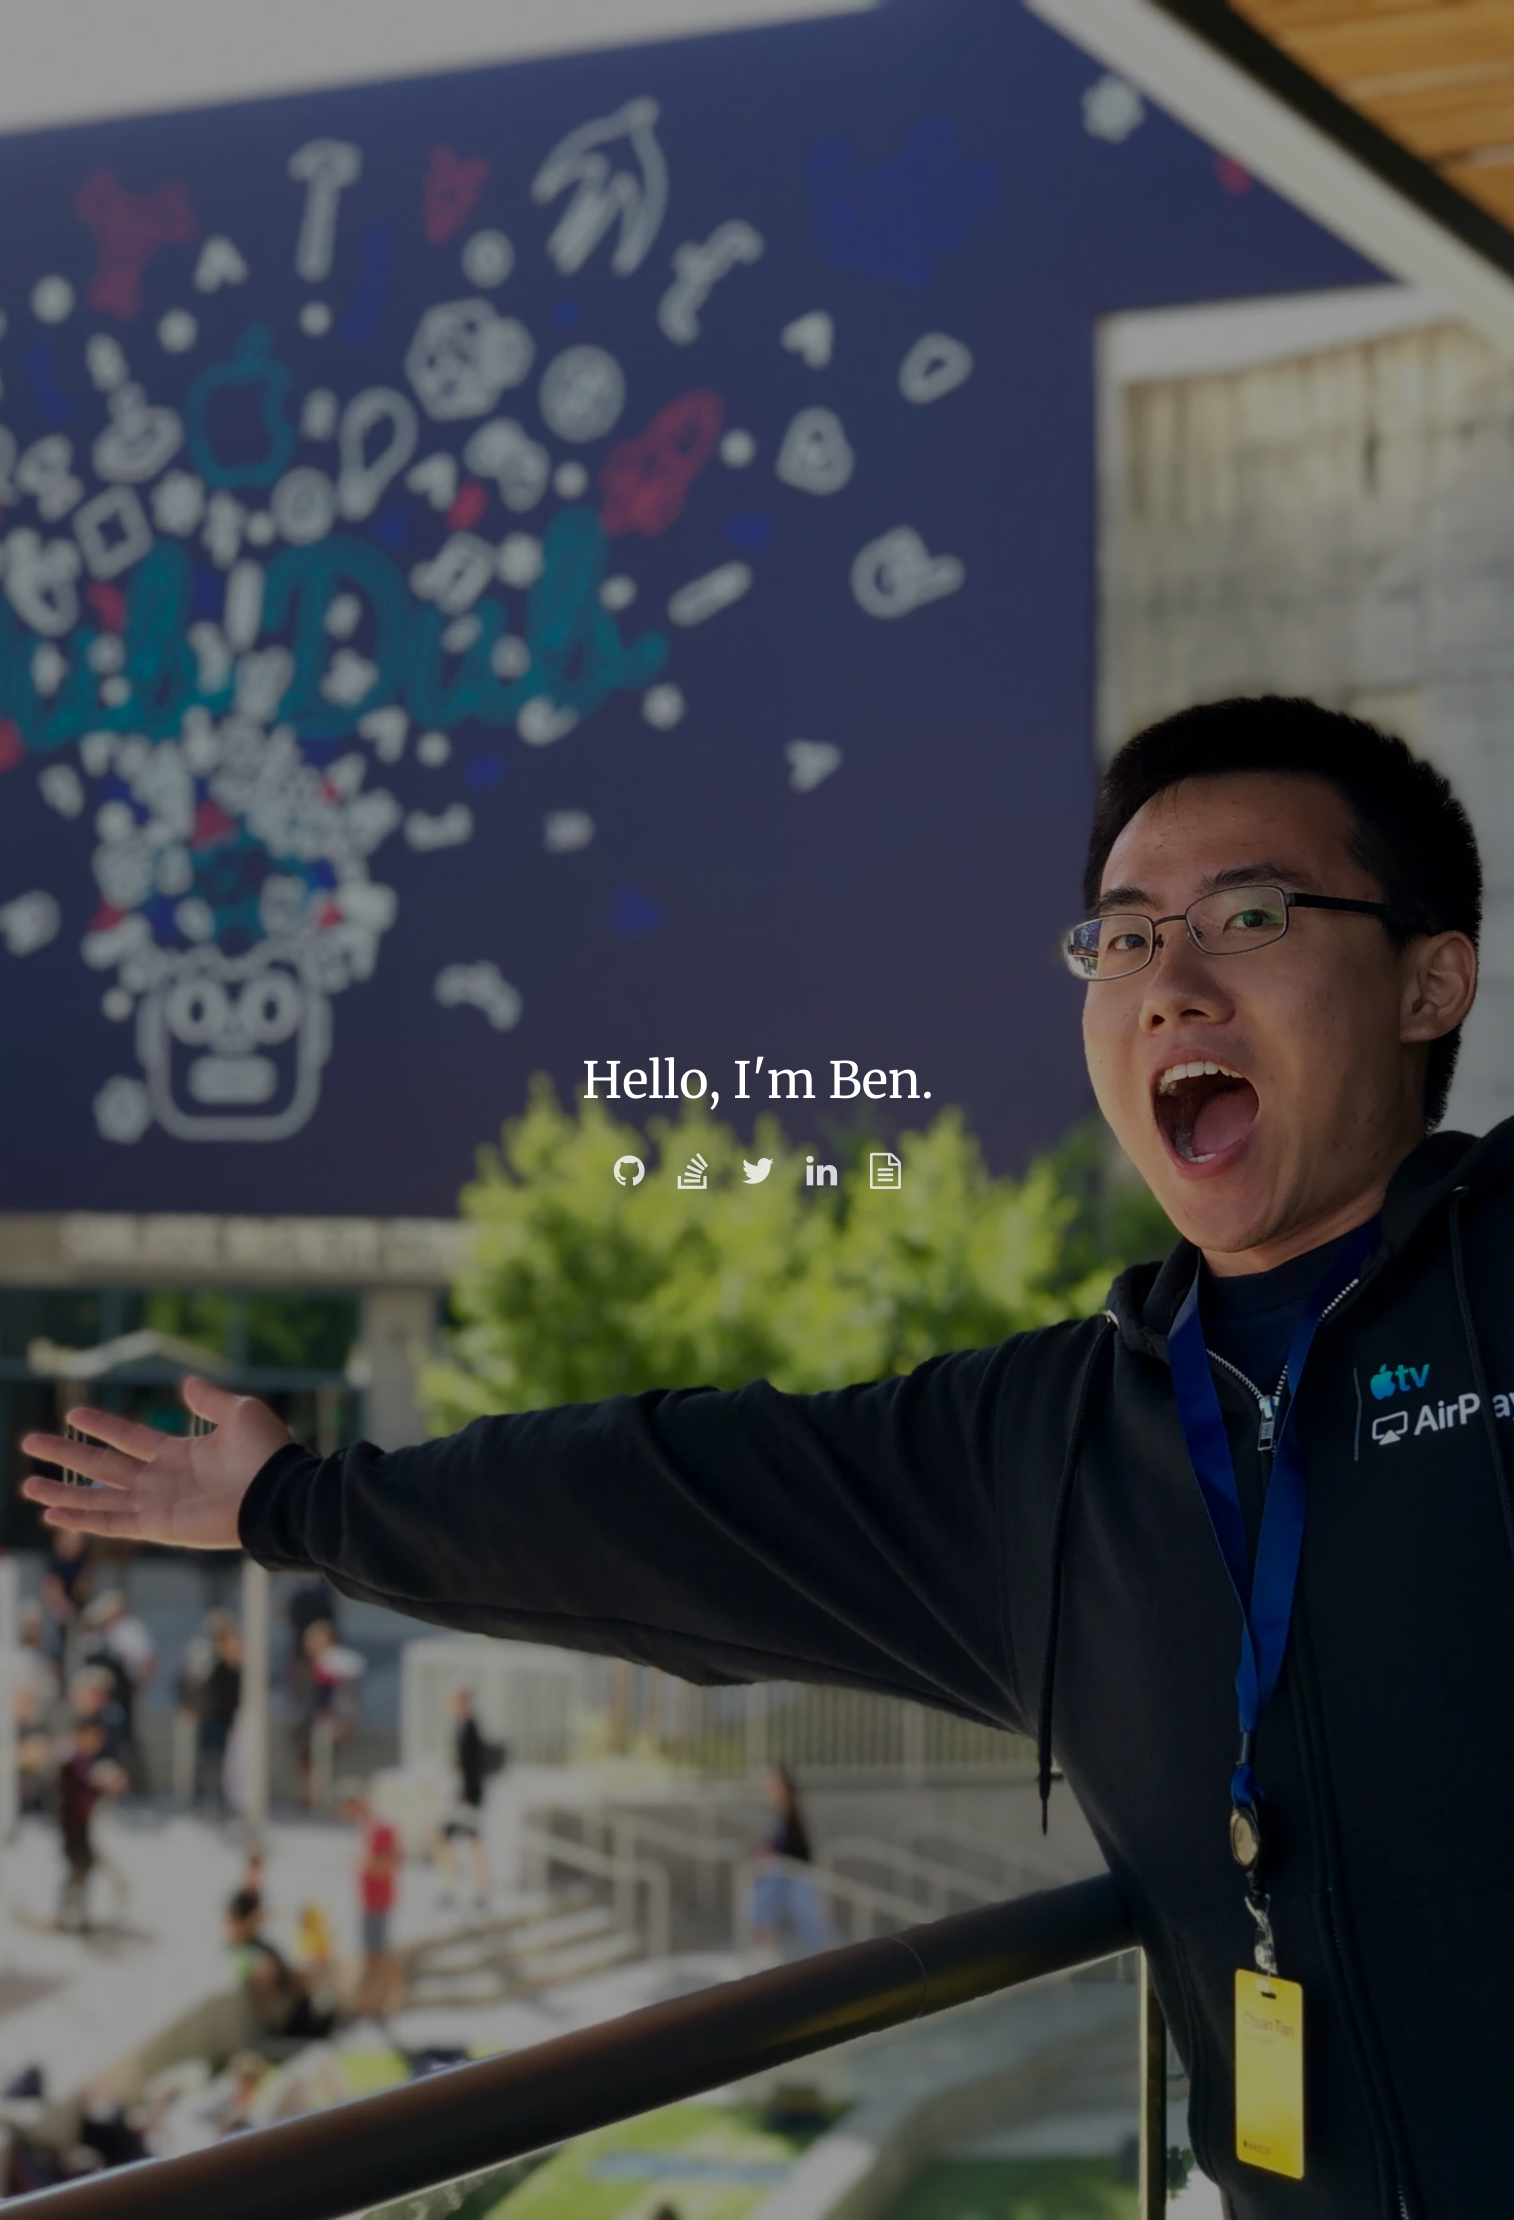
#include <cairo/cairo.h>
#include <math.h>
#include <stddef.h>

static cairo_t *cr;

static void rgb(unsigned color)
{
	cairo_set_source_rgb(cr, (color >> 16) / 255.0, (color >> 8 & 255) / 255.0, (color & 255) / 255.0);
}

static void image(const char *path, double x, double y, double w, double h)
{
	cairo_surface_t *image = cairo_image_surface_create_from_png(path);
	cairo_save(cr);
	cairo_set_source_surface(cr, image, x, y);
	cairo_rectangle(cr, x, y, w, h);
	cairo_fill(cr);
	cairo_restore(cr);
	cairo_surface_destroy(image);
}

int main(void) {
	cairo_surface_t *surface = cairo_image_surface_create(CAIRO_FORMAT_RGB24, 1514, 2220);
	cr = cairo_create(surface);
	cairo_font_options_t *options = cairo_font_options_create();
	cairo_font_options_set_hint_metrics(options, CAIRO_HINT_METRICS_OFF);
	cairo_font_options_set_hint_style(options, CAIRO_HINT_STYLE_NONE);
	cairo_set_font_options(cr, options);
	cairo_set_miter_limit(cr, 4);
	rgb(0xffffff);
	cairo_paint(cr);
	image("img/1.png", 0, 0, 1514, 2220);
	image("img/2.png", 613, 1155, 32, 31);
	image("img/3.png", 677, 1153, 31, 36);
	image("img/4.png", 742, 1158, 32, 26);
	image("img/5.png", 806, 1155, 32, 31);
	image("img/6.png", 870, 1152, 31, 37);
	cairo_select_font_face(cr, "Merriweather", CAIRO_FONT_SLANT_NORMAL, CAIRO_FONT_WEIGHT_NORMAL);
	cairo_set_font_size(cr, 50);
	rgb(0xffffff);
	cairo_move_to(cr, 582, 1098);
	cairo_show_text(cr, "Hello, I'm Ben.");
	cairo_surface_write_to_png(surface, "page.png");
	cairo_font_options_destroy(options);
	cairo_destroy(cr);
	cairo_surface_destroy(surface);
	return 0;
}
